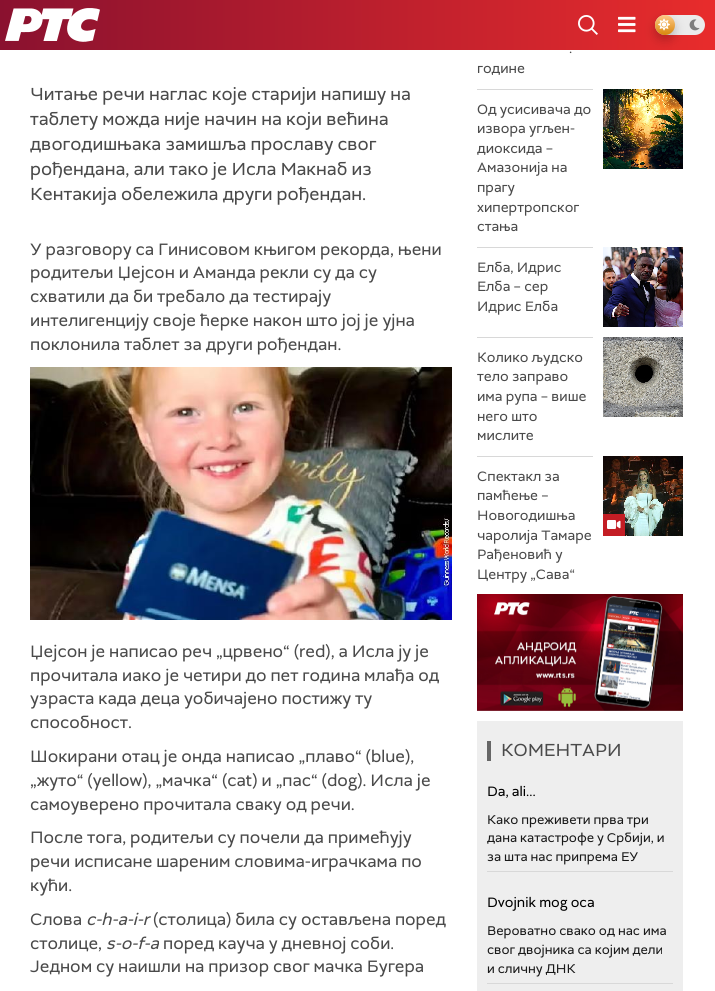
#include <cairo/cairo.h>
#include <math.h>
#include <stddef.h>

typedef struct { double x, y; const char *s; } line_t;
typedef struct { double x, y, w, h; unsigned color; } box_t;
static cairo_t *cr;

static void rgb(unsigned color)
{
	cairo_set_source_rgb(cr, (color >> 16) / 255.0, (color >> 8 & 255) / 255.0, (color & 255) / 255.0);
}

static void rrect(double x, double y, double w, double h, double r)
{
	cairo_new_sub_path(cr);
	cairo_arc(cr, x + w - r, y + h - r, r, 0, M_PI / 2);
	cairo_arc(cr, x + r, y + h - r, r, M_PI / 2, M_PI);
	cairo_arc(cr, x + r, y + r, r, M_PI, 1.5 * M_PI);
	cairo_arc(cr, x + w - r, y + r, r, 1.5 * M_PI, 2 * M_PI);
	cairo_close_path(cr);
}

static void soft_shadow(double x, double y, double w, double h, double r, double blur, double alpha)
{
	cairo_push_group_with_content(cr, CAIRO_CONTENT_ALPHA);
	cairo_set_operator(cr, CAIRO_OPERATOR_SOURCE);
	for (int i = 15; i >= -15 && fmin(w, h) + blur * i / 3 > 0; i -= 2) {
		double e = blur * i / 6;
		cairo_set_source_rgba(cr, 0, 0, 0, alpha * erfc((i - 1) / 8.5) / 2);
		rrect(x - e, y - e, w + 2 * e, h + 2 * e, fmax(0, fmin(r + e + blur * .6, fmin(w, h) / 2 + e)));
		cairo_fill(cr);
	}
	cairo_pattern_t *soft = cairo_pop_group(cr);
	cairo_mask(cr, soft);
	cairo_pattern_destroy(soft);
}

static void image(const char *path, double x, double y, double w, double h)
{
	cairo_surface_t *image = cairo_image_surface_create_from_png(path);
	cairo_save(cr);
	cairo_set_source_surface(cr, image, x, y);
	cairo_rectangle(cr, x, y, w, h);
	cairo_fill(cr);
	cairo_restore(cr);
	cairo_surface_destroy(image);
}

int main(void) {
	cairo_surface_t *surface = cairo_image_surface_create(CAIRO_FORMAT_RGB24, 715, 991);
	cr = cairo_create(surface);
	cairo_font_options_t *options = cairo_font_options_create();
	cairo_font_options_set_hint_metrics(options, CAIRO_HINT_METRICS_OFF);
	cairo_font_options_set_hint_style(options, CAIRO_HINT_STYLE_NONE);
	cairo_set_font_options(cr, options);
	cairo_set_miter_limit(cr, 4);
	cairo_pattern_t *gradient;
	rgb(0xffffff);
	cairo_paint(cr);
	gradient = cairo_pattern_create_linear(0, 25, 715, 25);
	cairo_pattern_add_color_stop_rgba(gradient, 0, 0.541, 0.067, 0.184, 1);
	cairo_pattern_add_color_stop_rgba(gradient, 1, 0.91, 0.173, 0.173, 1);
	cairo_set_source(cr, gradient);
	cairo_pattern_destroy(gradient);
	cairo_rectangle(cr, 0, 0, 715, 50);
	cairo_fill(cr);
	image("img/1.png", 5, 8, 95, 34);
	image("img/2.png", 578, 15, 20, 20);
	image("img/3.png", 618, 16, 18, 17);
	rgb(0xebebeb);
	rrect(655, 15, 50, 20, 10);
	cairo_fill(cr);
	rgb(0x000000);
	soft_shadow(655, 20, 20, 20, 10, 5, 0.2);
	gradient = cairo_pattern_create_linear(665, 15, 665, 35);
	cairo_pattern_add_color_stop_rgba(gradient, 0, 1, 0.8, 0.537, 1);
	cairo_pattern_add_color_stop_rgba(gradient, 1, 0.847, 0.525, 0.043, 1);
	cairo_set_source(cr, gradient);
	cairo_pattern_destroy(gradient);
	cairo_arc(cr, 665, 25, 10, 0, 2 * M_PI);
	cairo_fill(cr);
	image("img/4.png", 658, 18, 12, 13);
	image("img/5.png", 689, 19, 11, 12);
	image("img/6.png", 30, 367, 422, 253);
	rgb(0xd8d8d8);
	cairo_rectangle(cr, 477, 89, 116, 1);
	cairo_fill(cr);
	image("img/7.png", 603, 89, 80, 80);
	cairo_rectangle(cr, 477, 247, 116, 1);
	cairo_fill(cr);
	image("img/8.png", 603, 247, 80, 80);
	cairo_rectangle(cr, 477, 337, 116, 1);
	cairo_fill(cr);
	image("img/9.png", 603, 337, 80, 80);
	cairo_rectangle(cr, 477, 456, 116, 1);
	cairo_fill(cr);
	image("img/10.png", 603, 456, 80, 80);
	rgb(0xc31d24);
	cairo_rectangle(cr, 603, 514, 22, 22);
	cairo_fill(cr);
	image("img/11.png", 607, 520, 14, 9);
	image("img/12.png", 477, 594, 206, 117);
	{
		static const box_t items[] = {
			{477, 721, 206, 270, 0xeeeeee},
			{487, 741, 4, 20, 0x666666},
			{487, 871, 186, 1, 0xd8d8d8},
			{487, 983, 186, 1, 0xd8d8d8},
		};
		for (size_t i = 0; i < sizeof items / sizeof *items; i++) {
			rgb(items[i].color);
			cairo_rectangle(cr, items[i].x, items[i].y, items[i].w, items[i].h);
			cairo_fill(cr);
		}
	}
	cairo_select_font_face(cr, "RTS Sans", CAIRO_FONT_SLANT_NORMAL, CAIRO_FONT_WEIGHT_NORMAL);
	cairo_set_font_size(cr, 18);
	rgb(0x4a4a4a);
	{
		static const line_t items[] = {
			{30, 100, "Читање речи наглас које старији напишу на"},
			{30, 125, "таблету можда није начин на који већина"},
			{30, 150, "двогодишњака замишља прославу свог"},
			{30, 175, "рођендана, али тако је Исла Макнаб из"},
			{30, 200, "Кентакија обележила други рођендан."},
		};
		for (size_t i = 0; i < sizeof items / sizeof *items; i++) {
			cairo_move_to(cr, items[i].x, items[i].y);
			cairo_show_text(cr, items[i].s);
		}
	}
	cairo_set_font_size(cr, 17);
	{
		static const line_t items[] = {
			{30, 255, "У разговору са Гинисовом књигом рекорда, њени"},
			{30, 278, "родитељи Џејсон и Аманда рекли су да су"},
			{30, 302, "схватили да би требало да тестирају"},
			{30, 326, "интелигенцију своје ћерке након што јој је ујна"},
			{30, 350, "поклонила таблет за други рођендан."},
			{30, 657, "Џејсон је написао реч „црвено“ (red), а Исла ју је"},
			{30, 681, "прочитала иако је четири до пет година млађа од"},
			{30, 704, "узраста када деца уобичајено постижу ту"},
			{30, 728, "способност."},
			{30, 762, "Шокирани отац је онда написао „плаво“ (blue),"},
			{30, 786, "„жуто“ (yellow), „мачка“ (cat) и „пас“ (dog). Исла је"},
			{30, 810, "самоуверено прочитала сваку од речи."},
			{30, 843, "После тога, родитељи су почели да примећују"},
			{30, 867, "речи исписане шареним словима-играчкама по"},
			{30, 891, "кући."},
			{30, 925, "Слова"},
		};
		for (size_t i = 0; i < sizeof items / sizeof *items; i++) {
			cairo_move_to(cr, items[i].x, items[i].y);
			cairo_show_text(cr, items[i].s);
		}
	}
	cairo_select_font_face(cr, "RTS Sans", CAIRO_FONT_SLANT_ITALIC, CAIRO_FONT_WEIGHT_NORMAL);
	cairo_move_to(cr, 86, 925);
	cairo_show_text(cr, "c-h-a-i-r");
	cairo_select_font_face(cr, "RTS Sans", CAIRO_FONT_SLANT_NORMAL, CAIRO_FONT_WEIGHT_NORMAL);
	cairo_move_to(cr, 153, 925);
	cairo_show_text(cr, "(столица) била су остављена поред");
	cairo_move_to(cr, 30, 949);
	cairo_show_text(cr, "столице,");
	cairo_select_font_face(cr, "RTS Sans", CAIRO_FONT_SLANT_ITALIC, CAIRO_FONT_WEIGHT_NORMAL);
	cairo_move_to(cr, 106, 949);
	cairo_show_text(cr, "s-o-f-a");
	cairo_select_font_face(cr, "RTS Sans", CAIRO_FONT_SLANT_NORMAL, CAIRO_FONT_WEIGHT_NORMAL);
	cairo_move_to(cr, 163, 949);
	cairo_show_text(cr, "поред кауча у дневној соби.");
	cairo_move_to(cr, 30, 972);
	cairo_show_text(cr, "Једном су наишли на призор свог мачка Бугера");
	cairo_set_font_size(cr, 14);
	{
		static const line_t items[] = {
			{569, 53, "."},
			{477, 73, "године"},
			{477, 114, "Од усисивача до"},
			{477, 133, "извора угљен-"},
			{477, 153, "диоксида –"},
			{477, 172, "Амазонија на"},
			{477, 192, "прагу"},
			{477, 212, "хипертропског"},
			{477, 231, "стања"},
			{477, 272, "Елба, Идрис"},
			{477, 291, "Елба – сер"},
			{477, 311, "Идрис Елба"},
			{477, 362, "Колико људско"},
			{477, 381, "тело заправо"},
			{477, 401, "има рупа – више"},
			{477, 421, "него што"},
			{477, 440, "мислите"},
			{477, 481, "Спектакл за"},
			{477, 500, "памћење –"},
			{477, 520, "Новогодишња"},
			{477, 540, "чаролија Тамаре"},
			{477, 559, "Рађеновић у"},
			{477, 579, "Центру „Сава“"},
		};
		for (size_t i = 0; i < sizeof items / sizeof *items; i++) {
			cairo_move_to(cr, items[i].x, items[i].y);
			cairo_show_text(cr, items[i].s);
		}
	}
	cairo_set_font_size(cr, 18);
	cairo_move_to(cr, 501, 756);
	cairo_show_text(cr, "КОМЕНТАРИ");
	cairo_set_font_size(cr, 14);
	rgb(0x000000);
	cairo_move_to(cr, 487, 796);
	cairo_show_text(cr, "Da, ali...");
	cairo_set_font_size(cr, 13);
	rgb(0x191919);
	{
		static const line_t items[] = {
			{487, 824, "Како преживети прва три"},
			{487, 842, "дана катастрофе у Србији, и"},
			{487, 861, "за шта нас припрема ЕУ"},
		};
		for (size_t i = 0; i < sizeof items / sizeof *items; i++) {
			cairo_move_to(cr, items[i].x, items[i].y);
			cairo_show_text(cr, items[i].s);
		}
	}
	cairo_set_font_size(cr, 14);
	rgb(0x000000);
	cairo_move_to(cr, 487, 907);
	cairo_show_text(cr, "Dvojnik mog oca");
	cairo_set_font_size(cr, 13);
	rgb(0x191919);
	{
		static const line_t items[] = {
			{487, 935, "Вероватно свако од нас има"},
			{487, 954, "свог двојника са којим дели"},
			{487, 973, "и сличну ДНК"},
		};
		for (size_t i = 0; i < sizeof items / sizeof *items; i++) {
			cairo_move_to(cr, items[i].x, items[i].y);
			cairo_show_text(cr, items[i].s);
		}
	}
	cairo_surface_write_to_png(surface, "page.png");
	cairo_font_options_destroy(options);
	cairo_destroy(cr);
	cairo_surface_destroy(surface);
	return 0;
}
